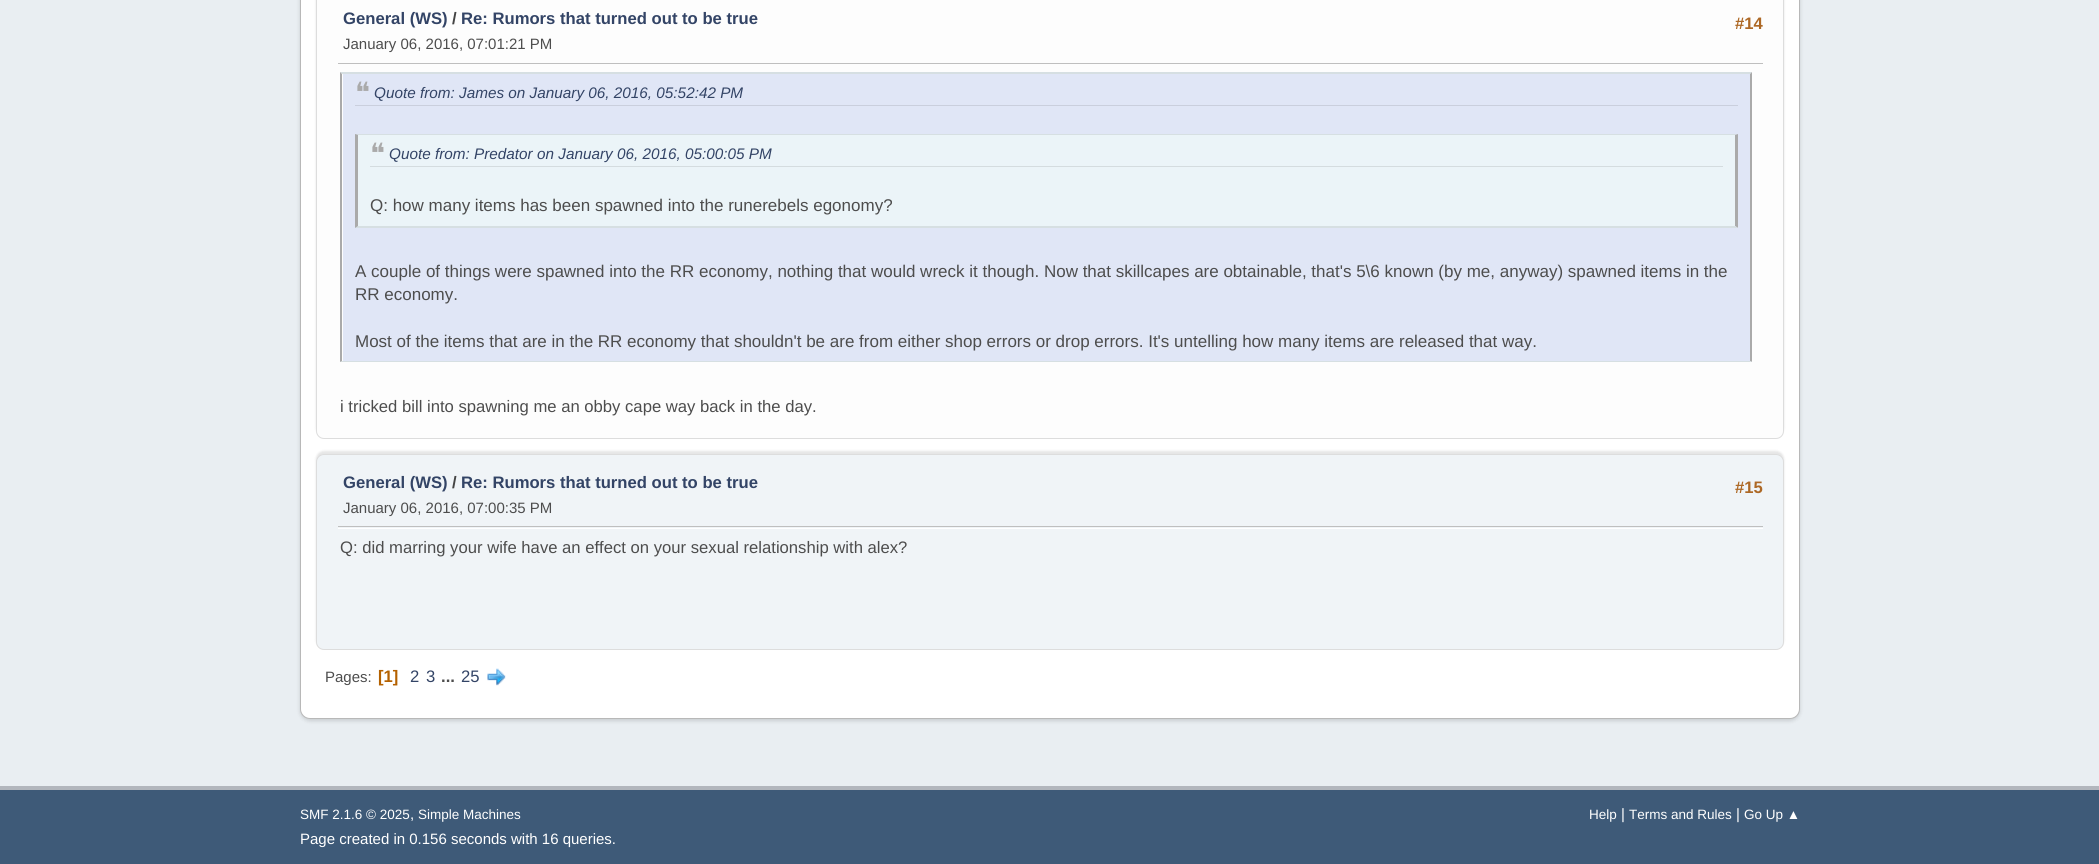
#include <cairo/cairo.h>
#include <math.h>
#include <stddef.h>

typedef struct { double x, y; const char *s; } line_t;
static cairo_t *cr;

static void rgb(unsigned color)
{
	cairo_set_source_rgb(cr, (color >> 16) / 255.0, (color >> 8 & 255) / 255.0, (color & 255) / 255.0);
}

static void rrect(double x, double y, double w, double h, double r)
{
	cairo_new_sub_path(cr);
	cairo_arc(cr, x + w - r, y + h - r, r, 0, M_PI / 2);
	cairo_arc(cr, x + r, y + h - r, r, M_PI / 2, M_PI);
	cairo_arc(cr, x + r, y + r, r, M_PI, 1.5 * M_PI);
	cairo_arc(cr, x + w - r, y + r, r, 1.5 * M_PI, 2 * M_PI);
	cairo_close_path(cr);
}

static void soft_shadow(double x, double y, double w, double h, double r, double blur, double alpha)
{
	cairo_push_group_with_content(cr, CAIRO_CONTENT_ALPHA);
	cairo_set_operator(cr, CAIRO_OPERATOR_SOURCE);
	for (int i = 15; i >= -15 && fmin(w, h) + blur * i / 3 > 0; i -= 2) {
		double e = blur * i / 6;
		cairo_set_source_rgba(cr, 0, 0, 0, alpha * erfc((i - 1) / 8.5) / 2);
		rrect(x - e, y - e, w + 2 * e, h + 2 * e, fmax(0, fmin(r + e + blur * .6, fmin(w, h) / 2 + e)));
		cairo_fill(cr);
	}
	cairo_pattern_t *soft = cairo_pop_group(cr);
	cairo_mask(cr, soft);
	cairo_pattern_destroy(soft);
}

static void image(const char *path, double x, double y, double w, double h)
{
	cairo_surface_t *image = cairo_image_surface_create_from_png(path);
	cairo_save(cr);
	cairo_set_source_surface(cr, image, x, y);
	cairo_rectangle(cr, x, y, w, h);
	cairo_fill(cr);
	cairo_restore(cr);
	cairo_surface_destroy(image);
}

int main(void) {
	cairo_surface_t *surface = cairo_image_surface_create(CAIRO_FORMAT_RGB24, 2099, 864);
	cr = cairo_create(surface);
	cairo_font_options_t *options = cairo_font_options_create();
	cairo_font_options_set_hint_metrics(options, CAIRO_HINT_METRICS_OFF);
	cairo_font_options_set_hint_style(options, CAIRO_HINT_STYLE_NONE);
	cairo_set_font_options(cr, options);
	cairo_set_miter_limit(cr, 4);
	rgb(0xe9eef2);
	cairo_paint(cr);
	rgb(0x000000);
	soft_shadow(300, -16, 1500, 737, 10, 2, 0.14);
	rgb(0xffffff);
	rrect(300.5, -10.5, 1499, 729, 9.5);
	cairo_fill_preserve(cr);
	rgb(0xb8b8b8);
	cairo_set_line_width(cr, 1);
	cairo_stroke(cr);
	rgb(0x000000);
	soft_shadow(316, -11, 1468, 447, 8, 1, 0.1);
	rgb(0xfdfdfd);
	rrect(316.5, -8.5, 1467, 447, 7.5);
	cairo_fill_preserve(cr);
	rgb(0xdddddd);
	cairo_stroke(cr);
	rgb(0xbfbfbf);
	cairo_rectangle(cr, 338, 63, 1425, 1);
	cairo_fill(cr);
	rgb(0xe0e6f6);
	cairo_rectangle(cr, 343, 74, 1407, 287);
	cairo_fill(cr);
	rgb(0xd6dfe2);
	cairo_new_path(cr);
	cairo_move_to(cr, 340, 72);
	cairo_line_to(cr, 1752, 72);
	cairo_line_to(cr, 1750, 74);
	cairo_line_to(cr, 342, 74);
	cairo_close_path(cr);
	cairo_fill(cr);
	rgb(0xaaaaaa);
	cairo_new_path(cr);
	cairo_move_to(cr, 1752, 72);
	cairo_line_to(cr, 1752, 362);
	cairo_line_to(cr, 1750, 361);
	cairo_line_to(cr, 1750, 74);
	cairo_close_path(cr);
	cairo_fill(cr);
	rgb(0xd6dfe2);
	cairo_new_path(cr);
	cairo_move_to(cr, 1752, 362);
	cairo_line_to(cr, 340, 362);
	cairo_line_to(cr, 342, 361);
	cairo_line_to(cr, 1750, 361);
	cairo_close_path(cr);
	cairo_fill(cr);
	rgb(0xaaaaaa);
	cairo_new_path(cr);
	cairo_move_to(cr, 340, 362);
	cairo_line_to(cr, 340, 72);
	cairo_line_to(cr, 342, 74);
	cairo_line_to(cr, 342, 361);
	cairo_close_path(cr);
	cairo_fill(cr);
	rgb(0xcacfdd);
	cairo_rectangle(cr, 355, 105, 1383, 1);
	cairo_fill(cr);
	rgb(0xebf4f8);
	cairo_rectangle(cr, 358, 135, 1377, 91);
	cairo_fill(cr);
	rgb(0xd6dfe2);
	cairo_new_path(cr);
	cairo_move_to(cr, 355, 134);
	cairo_line_to(cr, 1738, 134);
	cairo_line_to(cr, 1735, 135);
	cairo_line_to(cr, 358, 135);
	cairo_close_path(cr);
	cairo_fill(cr);
	rgb(0xaaaaaa);
	cairo_new_path(cr);
	cairo_move_to(cr, 1738, 134);
	cairo_line_to(cr, 1738, 228);
	cairo_line_to(cr, 1735, 226);
	cairo_line_to(cr, 1735, 135);
	cairo_close_path(cr);
	cairo_fill(cr);
	rgb(0xd6dfe2);
	cairo_new_path(cr);
	cairo_move_to(cr, 1738, 228);
	cairo_line_to(cr, 355, 228);
	cairo_line_to(cr, 358, 226);
	cairo_line_to(cr, 1735, 226);
	cairo_close_path(cr);
	cairo_fill(cr);
	rgb(0xaaaaaa);
	cairo_new_path(cr);
	cairo_move_to(cr, 355, 228);
	cairo_line_to(cr, 355, 134);
	cairo_line_to(cr, 358, 135);
	cairo_line_to(cr, 358, 226);
	cairo_close_path(cr);
	cairo_fill(cr);
	rgb(0xd4dcdf);
	cairo_rectangle(cr, 370, 166, 1353, 1);
	cairo_fill(cr);
	rgb(0x000000);
	soft_shadow(316, 451, 1468, 197, 8, 1, 0.1);
	rgb(0xf0f4f7);
	rrect(316.5, 454.5, 1467, 195, 7.5);
	cairo_fill_preserve(cr);
	rgb(0xdddddd);
	cairo_stroke(cr);
	rgb(0xffffff);
	cairo_rectangle(cr, 338, 528, 1425, 1);
	cairo_fill(cr);
	rgb(0xbfbfbf);
	cairo_rectangle(cr, 338, 526, 1425, 1);
	cairo_fill(cr);
	image("img/1.png", 487, 668, 19, 18);
	rgb(0x3e5a78);
	cairo_rectangle(cr, 0, 790, 2099, 74);
	cairo_fill(cr);
	rgb(0xb2b6bd);
	cairo_rectangle(cr, 0, 786, 2099, 4);
	cairo_fill(cr);
	cairo_select_font_face(cr, "Liberation Sans", CAIRO_FONT_SLANT_NORMAL, CAIRO_FONT_WEIGHT_BOLD);
	cairo_set_font_size(cr, 16.65);
	rgb(0x334466);
	cairo_move_to(cr, 343, 24);
	cairo_show_text(cr, "General (WS)");
	rgb(0x444444);
	cairo_move_to(cr, 452, 24);
	cairo_show_text(cr, "/");
	rgb(0x334466);
	cairo_move_to(cr, 461, 24);
	cairo_show_text(cr, "Re: Rumors that turned out to be true");
	cairo_select_font_face(cr, "Liberation Sans", CAIRO_FONT_SLANT_NORMAL, CAIRO_FONT_WEIGHT_NORMAL);
	cairo_set_font_size(cr, 15);
	rgb(0x4d4d4d);
	cairo_move_to(cr, 343, 49);
	cairo_show_text(cr, "January 06, 2016, 07:01:21 PM");
	cairo_select_font_face(cr, "Liberation Sans", CAIRO_FONT_SLANT_NORMAL, CAIRO_FONT_WEIGHT_BOLD);
	cairo_set_font_size(cr, 16.65);
	rgb(0xad6825);
	cairo_move_to(cr, 1735, 29);
	cairo_show_text(cr, "#14");
	cairo_select_font_face(cr, "DejaVu Sans", CAIRO_FONT_SLANT_NORMAL, CAIRO_FONT_WEIGHT_NORMAL);
	cairo_set_font_size(cr, 28);
	rgb(0xaaaaaa);
	cairo_move_to(cr, 355, 102);
	cairo_show_text(cr, "❝");
	cairo_select_font_face(cr, "Liberation Sans", CAIRO_FONT_SLANT_ITALIC, CAIRO_FONT_WEIGHT_NORMAL);
	cairo_set_font_size(cr, 15.3);
	rgb(0x334466);
	cairo_move_to(cr, 374, 98);
	cairo_show_text(cr, "Quote from: James on January 06, 2016, 05:52:42 PM");
	cairo_select_font_face(cr, "DejaVu Sans", CAIRO_FONT_SLANT_NORMAL, CAIRO_FONT_WEIGHT_NORMAL);
	cairo_set_font_size(cr, 28);
	rgb(0xaaaaaa);
	cairo_move_to(cr, 370, 163);
	cairo_show_text(cr, "❝");
	cairo_select_font_face(cr, "Liberation Sans", CAIRO_FONT_SLANT_ITALIC, CAIRO_FONT_WEIGHT_NORMAL);
	cairo_set_font_size(cr, 15.3);
	rgb(0x334466);
	cairo_move_to(cr, 389, 159);
	cairo_show_text(cr, "Quote from: Predator on January 06, 2016, 05:00:05 PM");
	cairo_select_font_face(cr, "Liberation Sans", CAIRO_FONT_SLANT_NORMAL, CAIRO_FONT_WEIGHT_NORMAL);
	cairo_set_font_size(cr, 17);
	rgb(0x4d4d4d);
	{
		static const line_t items[] = {
			{370, 211, "Q: how many items has been spawned into the runerebels egonomy?"},
			{355, 277, "A couple of things were spawned into the RR economy, nothing that would wreck it though. Now that skillcapes are obtainable, that's 5\\6 known (by me, anyway) spawned items in the"},
			{355, 300, "RR economy."},
			{355, 347, "Most of the items that are in the RR economy that shouldn't be are from either shop errors or drop errors. It's untelling how many items are released that way."},
		};
		for (size_t i = 0; i < sizeof items / sizeof *items; i++) {
			cairo_move_to(cr, items[i].x, items[i].y);
			cairo_show_text(cr, items[i].s);
		}
	}
	cairo_set_font_size(cr, 16.65);
	cairo_move_to(cr, 340, 412);
	cairo_show_text(cr, "i tricked bill into spawning me an obby cape way back in the day.");
	cairo_select_font_face(cr, "Liberation Sans", CAIRO_FONT_SLANT_NORMAL, CAIRO_FONT_WEIGHT_BOLD);
	rgb(0x334466);
	cairo_move_to(cr, 343, 488);
	cairo_show_text(cr, "General (WS)");
	rgb(0x444444);
	cairo_move_to(cr, 452, 488);
	cairo_show_text(cr, "/");
	rgb(0x334466);
	cairo_move_to(cr, 461, 488);
	cairo_show_text(cr, "Re: Rumors that turned out to be true");
	cairo_select_font_face(cr, "Liberation Sans", CAIRO_FONT_SLANT_NORMAL, CAIRO_FONT_WEIGHT_NORMAL);
	cairo_set_font_size(cr, 15);
	rgb(0x4d4d4d);
	cairo_move_to(cr, 343, 513);
	cairo_show_text(cr, "January 06, 2016, 07:00:35 PM");
	cairo_select_font_face(cr, "Liberation Sans", CAIRO_FONT_SLANT_NORMAL, CAIRO_FONT_WEIGHT_BOLD);
	cairo_set_font_size(cr, 16.65);
	rgb(0xad6825);
	cairo_move_to(cr, 1735, 493);
	cairo_show_text(cr, "#15");
	cairo_select_font_face(cr, "Liberation Sans", CAIRO_FONT_SLANT_NORMAL, CAIRO_FONT_WEIGHT_NORMAL);
	rgb(0x4d4d4d);
	cairo_move_to(cr, 340, 553);
	cairo_show_text(cr, "Q: did marring your wife have an effect on your sexual relationship with alex?");
	cairo_set_font_size(cr, 15);
	cairo_move_to(cr, 325, 682);
	cairo_show_text(cr, "Pages:");
	cairo_select_font_face(cr, "Liberation Sans", CAIRO_FONT_SLANT_NORMAL, CAIRO_FONT_WEIGHT_BOLD);
	cairo_set_font_size(cr, 16.65);
	rgb(0xb46100);
	cairo_move_to(cr, 378, 682);
	cairo_show_text(cr, "[1]");
	cairo_select_font_face(cr, "Liberation Sans", CAIRO_FONT_SLANT_NORMAL, CAIRO_FONT_WEIGHT_NORMAL);
	rgb(0x334466);
	cairo_move_to(cr, 410, 682);
	cairo_show_text(cr, "2");
	cairo_move_to(cr, 426, 682);
	cairo_show_text(cr, "3");
	cairo_select_font_face(cr, "Liberation Sans", CAIRO_FONT_SLANT_NORMAL, CAIRO_FONT_WEIGHT_BOLD);
	rgb(0x4d4d4d);
	cairo_move_to(cr, 441, 682);
	cairo_show_text(cr, "...");
	cairo_select_font_face(cr, "Liberation Sans", CAIRO_FONT_SLANT_NORMAL, CAIRO_FONT_WEIGHT_NORMAL);
	rgb(0x334466);
	cairo_move_to(cr, 461, 682);
	cairo_show_text(cr, "25");
	cairo_set_font_size(cr, 13.5);
	rgb(0xffffff);
	cairo_move_to(cr, 300, 819);
	cairo_show_text(cr, "SMF 2.1.6 © 2025");
	cairo_set_font_size(cr, 15);
	cairo_move_to(cr, 410, 819);
	cairo_show_text(cr, ",");
	cairo_set_font_size(cr, 13.5);
	cairo_move_to(cr, 418, 819);
	cairo_show_text(cr, "Simple Machines");
	cairo_move_to(cr, 1589, 819);
	cairo_show_text(cr, "Help");
	cairo_set_font_size(cr, 15);
	cairo_move_to(cr, 1621, 819);
	cairo_show_text(cr, "|");
	cairo_set_font_size(cr, 13.5);
	cairo_move_to(cr, 1629, 819);
	cairo_show_text(cr, "Terms and Rules");
	cairo_set_font_size(cr, 15);
	cairo_move_to(cr, 1736, 819);
	cairo_show_text(cr, "|");
	cairo_set_font_size(cr, 13.5);
	cairo_move_to(cr, 1744, 819);
	cairo_show_text(cr, "Go Up ▲");
	cairo_set_font_size(cr, 15);
	cairo_move_to(cr, 300, 844);
	cairo_show_text(cr, "Page created in 0.156 seconds with 16 queries.");
	cairo_surface_write_to_png(surface, "page.png");
	cairo_font_options_destroy(options);
	cairo_destroy(cr);
	cairo_surface_destroy(surface);
	return 0;
}
